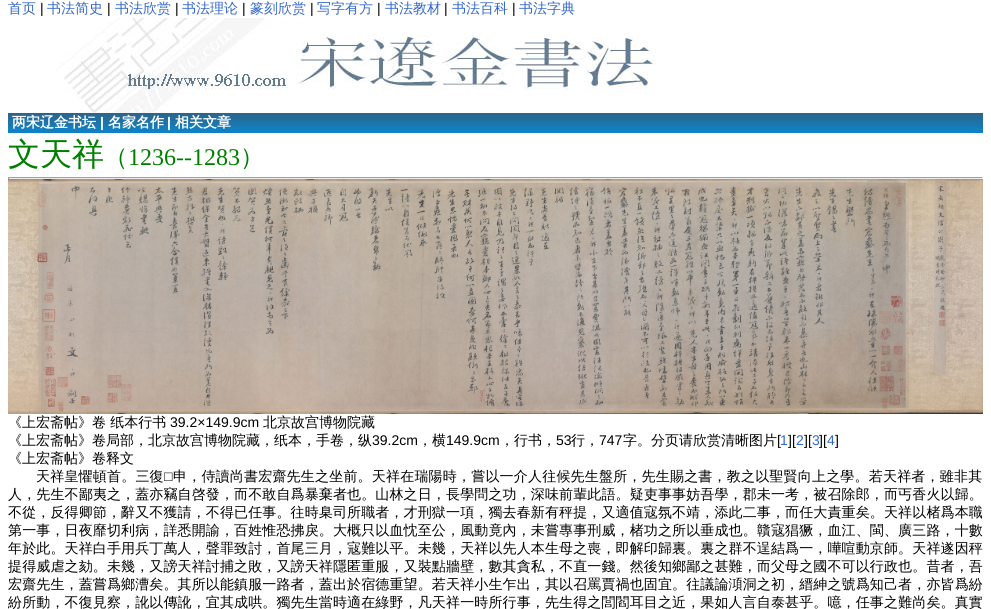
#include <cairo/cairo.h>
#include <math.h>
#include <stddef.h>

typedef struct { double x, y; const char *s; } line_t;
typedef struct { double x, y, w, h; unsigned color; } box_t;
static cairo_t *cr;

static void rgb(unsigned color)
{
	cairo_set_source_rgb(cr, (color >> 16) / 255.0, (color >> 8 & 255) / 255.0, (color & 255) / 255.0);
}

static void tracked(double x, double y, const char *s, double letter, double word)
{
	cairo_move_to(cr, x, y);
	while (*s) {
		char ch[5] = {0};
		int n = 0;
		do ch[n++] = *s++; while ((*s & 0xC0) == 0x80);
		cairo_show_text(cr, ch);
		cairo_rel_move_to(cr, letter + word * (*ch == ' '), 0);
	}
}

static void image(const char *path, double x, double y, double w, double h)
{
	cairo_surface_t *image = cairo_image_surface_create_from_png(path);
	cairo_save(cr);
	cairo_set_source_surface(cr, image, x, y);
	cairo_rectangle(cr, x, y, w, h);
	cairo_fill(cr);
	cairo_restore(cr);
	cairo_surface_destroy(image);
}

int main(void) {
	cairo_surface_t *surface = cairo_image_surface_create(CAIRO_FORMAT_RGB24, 991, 609);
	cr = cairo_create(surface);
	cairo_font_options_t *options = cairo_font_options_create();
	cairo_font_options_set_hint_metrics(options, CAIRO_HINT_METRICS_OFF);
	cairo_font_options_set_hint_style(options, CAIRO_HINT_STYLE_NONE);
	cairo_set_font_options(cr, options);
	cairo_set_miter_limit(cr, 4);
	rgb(0xffffff);
	cairo_paint(cr);
	image("img/1.png", 56, 18, 600, 95);
	image("img/2.png", 8, 113, 975, 20);
	{
		static const box_t items[] = {
			{8, 177, 975, 1, 0x9f9f9f},
			{982, 177, 1, 2, 0xeeeeee},
			{8, 178, 975, 1, 0xeeeeee},
			{8, 177, 1, 2, 0x9f9f9f},
		};
		for (size_t i = 0; i < sizeof items / sizeof *items; i++) {
			rgb(items[i].color);
			cairo_rectangle(cr, items[i].x, items[i].y, items[i].w, items[i].h);
			cairo_fill(cr);
		}
	}
	image("img/3.png", 8, 179, 975, 235);
	cairo_select_font_face(cr, "WenQuanYi Zen Hei Medium", CAIRO_FONT_SLANT_NORMAL, CAIRO_FONT_WEIGHT_NORMAL);
	cairo_set_font_size(cr, 14);
	rgb(0x3366cc);
	cairo_move_to(cr, 8, 13);
	cairo_show_text(cr, "首页");
	cairo_select_font_face(cr, "Liberation Sans", CAIRO_FONT_SLANT_NORMAL, CAIRO_FONT_WEIGHT_NORMAL);
	rgb(0x000000);
	cairo_move_to(cr, 40, 13);
	cairo_show_text(cr, "|");
	cairo_select_font_face(cr, "WenQuanYi Zen Hei Medium", CAIRO_FONT_SLANT_NORMAL, CAIRO_FONT_WEIGHT_NORMAL);
	rgb(0x3366cc);
	cairo_move_to(cr, 47, 13);
	cairo_show_text(cr, "书法简史");
	cairo_select_font_face(cr, "Liberation Sans", CAIRO_FONT_SLANT_NORMAL, CAIRO_FONT_WEIGHT_NORMAL);
	rgb(0x000000);
	cairo_move_to(cr, 107, 13);
	cairo_show_text(cr, "|");
	cairo_select_font_face(cr, "WenQuanYi Zen Hei Medium", CAIRO_FONT_SLANT_NORMAL, CAIRO_FONT_WEIGHT_NORMAL);
	rgb(0x3366cc);
	cairo_move_to(cr, 115, 13);
	cairo_show_text(cr, "书法欣赏");
	cairo_select_font_face(cr, "Liberation Sans", CAIRO_FONT_SLANT_NORMAL, CAIRO_FONT_WEIGHT_NORMAL);
	rgb(0x000000);
	cairo_move_to(cr, 175, 13);
	cairo_show_text(cr, "|");
	cairo_select_font_face(cr, "WenQuanYi Zen Hei Medium", CAIRO_FONT_SLANT_NORMAL, CAIRO_FONT_WEIGHT_NORMAL);
	rgb(0x3366cc);
	cairo_move_to(cr, 182, 13);
	cairo_show_text(cr, "书法理论");
	cairo_select_font_face(cr, "Liberation Sans", CAIRO_FONT_SLANT_NORMAL, CAIRO_FONT_WEIGHT_NORMAL);
	rgb(0x000000);
	cairo_move_to(cr, 242, 13);
	cairo_show_text(cr, "|");
	cairo_select_font_face(cr, "WenQuanYi Zen Hei Medium", CAIRO_FONT_SLANT_NORMAL, CAIRO_FONT_WEIGHT_NORMAL);
	rgb(0x3366cc);
	cairo_move_to(cr, 250, 13);
	cairo_show_text(cr, "篆刻欣赏");
	cairo_select_font_face(cr, "Liberation Sans", CAIRO_FONT_SLANT_NORMAL, CAIRO_FONT_WEIGHT_NORMAL);
	rgb(0x000000);
	cairo_move_to(cr, 310, 13);
	cairo_show_text(cr, "|");
	cairo_select_font_face(cr, "WenQuanYi Zen Hei Medium", CAIRO_FONT_SLANT_NORMAL, CAIRO_FONT_WEIGHT_NORMAL);
	rgb(0x3366cc);
	cairo_move_to(cr, 317, 13);
	cairo_show_text(cr, "写字有方");
	cairo_select_font_face(cr, "Liberation Sans", CAIRO_FONT_SLANT_NORMAL, CAIRO_FONT_WEIGHT_NORMAL);
	rgb(0x000000);
	cairo_move_to(cr, 377, 13);
	cairo_show_text(cr, "|");
	cairo_select_font_face(cr, "WenQuanYi Zen Hei Medium", CAIRO_FONT_SLANT_NORMAL, CAIRO_FONT_WEIGHT_NORMAL);
	rgb(0x3366cc);
	cairo_move_to(cr, 385, 13);
	cairo_show_text(cr, "书法教材");
	cairo_select_font_face(cr, "Liberation Sans", CAIRO_FONT_SLANT_NORMAL, CAIRO_FONT_WEIGHT_NORMAL);
	rgb(0x000000);
	cairo_move_to(cr, 444, 13);
	cairo_show_text(cr, "|");
	cairo_select_font_face(cr, "WenQuanYi Zen Hei Medium", CAIRO_FONT_SLANT_NORMAL, CAIRO_FONT_WEIGHT_NORMAL);
	rgb(0x3366cc);
	cairo_move_to(cr, 452, 13);
	cairo_show_text(cr, "书法百科");
	cairo_select_font_face(cr, "Liberation Sans", CAIRO_FONT_SLANT_NORMAL, CAIRO_FONT_WEIGHT_NORMAL);
	rgb(0x000000);
	cairo_move_to(cr, 512, 13);
	cairo_show_text(cr, "|");
	cairo_select_font_face(cr, "WenQuanYi Zen Hei Medium", CAIRO_FONT_SLANT_NORMAL, CAIRO_FONT_WEIGHT_NORMAL);
	rgb(0x3366cc);
	cairo_move_to(cr, 519, 13);
	cairo_show_text(cr, "书法字典");
	cairo_select_font_face(cr, "WenQuanYi Zen Hei", CAIRO_FONT_SLANT_NORMAL, CAIRO_FONT_WEIGHT_BOLD);
	rgb(0xffffff);
	cairo_move_to(cr, 12, 127);
	cairo_show_text(cr, "两宋辽金书坛");
	cairo_select_font_face(cr, "Liberation Sans", CAIRO_FONT_SLANT_NORMAL, CAIRO_FONT_WEIGHT_BOLD);
	cairo_move_to(cr, 100, 127);
	cairo_show_text(cr, "|");
	cairo_select_font_face(cr, "WenQuanYi Zen Hei", CAIRO_FONT_SLANT_NORMAL, CAIRO_FONT_WEIGHT_BOLD);
	cairo_move_to(cr, 108, 127);
	cairo_show_text(cr, "名家名作");
	cairo_select_font_face(cr, "Liberation Sans", CAIRO_FONT_SLANT_NORMAL, CAIRO_FONT_WEIGHT_BOLD);
	cairo_move_to(cr, 167, 127);
	cairo_show_text(cr, "|");
	cairo_select_font_face(cr, "WenQuanYi Zen Hei", CAIRO_FONT_SLANT_NORMAL, CAIRO_FONT_WEIGHT_BOLD);
	cairo_move_to(cr, 175, 127);
	cairo_show_text(cr, "相关文章");
	cairo_select_font_face(cr, "WenQuanYi Zen Hei Medium", CAIRO_FONT_SLANT_NORMAL, CAIRO_FONT_WEIGHT_NORMAL);
	cairo_set_font_size(cr, 32);
	rgb(0x008000);
	cairo_move_to(cr, 8, 165);
	cairo_show_text(cr, "文天祥");
	cairo_set_font_size(cr, 24);
	cairo_move_to(cr, 104, 165);
	cairo_show_text(cr, "（");
	cairo_select_font_face(cr, "Liberation Serif", CAIRO_FONT_SLANT_NORMAL, CAIRO_FONT_WEIGHT_NORMAL);
	cairo_move_to(cr, 128, 165);
	cairo_show_text(cr, "1236--1283");
	cairo_select_font_face(cr, "WenQuanYi Zen Hei Medium", CAIRO_FONT_SLANT_NORMAL, CAIRO_FONT_WEIGHT_NORMAL);
	cairo_move_to(cr, 240, 165);
	cairo_show_text(cr, "）");
	cairo_set_font_size(cr, 14);
	rgb(0x000000);
	cairo_move_to(cr, 8, 427);
	cairo_show_text(cr, "《上宏斋帖》卷 纸本行书");
	cairo_select_font_face(cr, "Liberation Sans", CAIRO_FONT_SLANT_NORMAL, CAIRO_FONT_WEIGHT_NORMAL);
	cairo_move_to(cr, 170, 427);
	cairo_show_text(cr, "39.2×149.9cm");
	cairo_select_font_face(cr, "WenQuanYi Zen Hei Medium", CAIRO_FONT_SLANT_NORMAL, CAIRO_FONT_WEIGHT_NORMAL);
	cairo_move_to(cr, 263, 427);
	cairo_show_text(cr, "北京故宫博物院藏");
	cairo_move_to(cr, 8, 445);
	cairo_show_text(cr, "《上宏斋帖》卷局部，北京故宫博物院藏，纸本，手卷，纵");
	cairo_select_font_face(cr, "Liberation Sans", CAIRO_FONT_SLANT_NORMAL, CAIRO_FONT_WEIGHT_NORMAL);
	cairo_move_to(cr, 372, 445);
	cairo_show_text(cr, "39.2cm");
	cairo_select_font_face(cr, "WenQuanYi Zen Hei Medium", CAIRO_FONT_SLANT_NORMAL, CAIRO_FONT_WEIGHT_NORMAL);
	cairo_move_to(cr, 418, 445);
	cairo_show_text(cr, "，横");
	cairo_select_font_face(cr, "Liberation Sans", CAIRO_FONT_SLANT_NORMAL, CAIRO_FONT_WEIGHT_NORMAL);
	cairo_move_to(cr, 446, 445);
	cairo_show_text(cr, "149.9cm");
	cairo_select_font_face(cr, "WenQuanYi Zen Hei Medium", CAIRO_FONT_SLANT_NORMAL, CAIRO_FONT_WEIGHT_NORMAL);
	cairo_move_to(cr, 500, 445);
	cairo_show_text(cr, "，行书，");
	cairo_select_font_face(cr, "Liberation Sans", CAIRO_FONT_SLANT_NORMAL, CAIRO_FONT_WEIGHT_NORMAL);
	cairo_move_to(cr, 556, 445);
	cairo_show_text(cr, "53");
	cairo_select_font_face(cr, "WenQuanYi Zen Hei Medium", CAIRO_FONT_SLANT_NORMAL, CAIRO_FONT_WEIGHT_NORMAL);
	cairo_move_to(cr, 571, 445);
	cairo_show_text(cr, "行，");
	cairo_select_font_face(cr, "Liberation Sans", CAIRO_FONT_SLANT_NORMAL, CAIRO_FONT_WEIGHT_NORMAL);
	cairo_move_to(cr, 599, 445);
	cairo_show_text(cr, "747");
	cairo_select_font_face(cr, "WenQuanYi Zen Hei Medium", CAIRO_FONT_SLANT_NORMAL, CAIRO_FONT_WEIGHT_NORMAL);
	cairo_move_to(cr, 623, 445);
	cairo_show_text(cr, "字。分页请欣赏清晰图片");
	cairo_select_font_face(cr, "Liberation Sans", CAIRO_FONT_SLANT_NORMAL, CAIRO_FONT_WEIGHT_NORMAL);
	cairo_move_to(cr, 777, 445);
	cairo_show_text(cr, "[");
	rgb(0x3366cc);
	cairo_move_to(cr, 780, 445);
	cairo_show_text(cr, "1");
	rgb(0x000000);
	cairo_move_to(cr, 788, 445);
	cairo_show_text(cr, "][");
	rgb(0x3366cc);
	cairo_move_to(cr, 796, 445);
	cairo_show_text(cr, "2");
	rgb(0x000000);
	cairo_move_to(cr, 804, 445);
	cairo_show_text(cr, "][");
	rgb(0x3366cc);
	cairo_move_to(cr, 812, 445);
	cairo_show_text(cr, "3");
	rgb(0x000000);
	cairo_move_to(cr, 819, 445);
	cairo_show_text(cr, "][");
	rgb(0x3366cc);
	cairo_move_to(cr, 827, 445);
	cairo_show_text(cr, "4");
	rgb(0x000000);
	cairo_move_to(cr, 835, 445);
	cairo_show_text(cr, "]");
	cairo_select_font_face(cr, "WenQuanYi Zen Hei Medium", CAIRO_FONT_SLANT_NORMAL, CAIRO_FONT_WEIGHT_NORMAL);
	cairo_move_to(cr, 8, 463);
	cairo_show_text(cr, "《上宏斋帖》卷释文");
	tracked(36, 481, "天祥皇懼頓首。三復", 0.2, 0);
	cairo_select_font_face(cr, "Liberation Sans", CAIRO_FONT_SLANT_NORMAL, CAIRO_FONT_WEIGHT_NORMAL);
	tracked(164, 481, "□", 0.2, 0);
	cairo_select_font_face(cr, "WenQuanYi Zen Hei Medium", CAIRO_FONT_SLANT_NORMAL, CAIRO_FONT_WEIGHT_NORMAL);
	tracked(173, 481, "申，侍讀尚書宏齋先生之坐前。天祥在瑞陽時，嘗以一介人往候先生盤所，先生賜之書，教之以聖賢向上之學。若天祥者，雖非其", 0.2, 0);
	{
		static const line_t items[] = {
			{8, 499, "人，先生不鄙夷之，蓋亦竊自啓發，而不敢自爲暴棄者也。山林之日，長學問之功，深味前輩此語。疑吏事事妨吾學，郡未一考，被召除郎，而丐香火以歸。"},
			{8, 517, "不從，反得卿節，辭又不獲請，不得已任事。往時臬司所職者，才刑獄一項，獨去春新有秤提，又適值寇氛不靖，添此二事，而任大責重矣。天祥以楮爲本職"},
			{8, 535, "第一事，日夜靡切利病，詳悉開諭，百姓惟恐拂戾。大概只以血忱至公，風動竟內，未嘗專事刑威，楮功之所以垂成也。贛寇猖獗，血江、閩、廣三路，十數"},
			{8, 553, "年於此。天祥白手用兵丁萬人，聲罪致討，首尾三月，寇難以平。未幾，天祥以先人本生母之喪，即解印歸裏。裏之群不逞結爲一，嘩喧動京師。天祥遂因秤"},
			{8, 571, "提得威虐之劾。未幾，又謗天祥討捕之敗，又謗天祥隱匿重服，又裝點牆壁，數其貪私，不直一錢。然後知鄉鄙之甚難，而父母之國不可以行政也。昔者，吾"},
			{8, 589, "宏齋先生，蓋嘗爲鄉漕矣。其所以能鎮服一路者，蓋出於宿德重望。若天祥小生乍出，其以召罵賈禍也固宜。往議論澒洞之初，縉紳之號爲知己者，亦皆爲紛"},
			{8, 607, "紛所動，不復見察，訛以傳訛，宜其成哄。獨先生當時適在綠野，凡天祥一時所行事，先生得之閭閻耳目之近，果如人言自泰甚乎。噫，任事之難尚矣。真實"},
		};
		for (size_t i = 0; i < sizeof items / sizeof *items; i++) {
			tracked(items[i].x, items[i].y, items[i].s, 0.13, 0);
		}
	}
	cairo_surface_write_to_png(surface, "page.png");
	cairo_font_options_destroy(options);
	cairo_destroy(cr);
	cairo_surface_destroy(surface);
	return 0;
}
